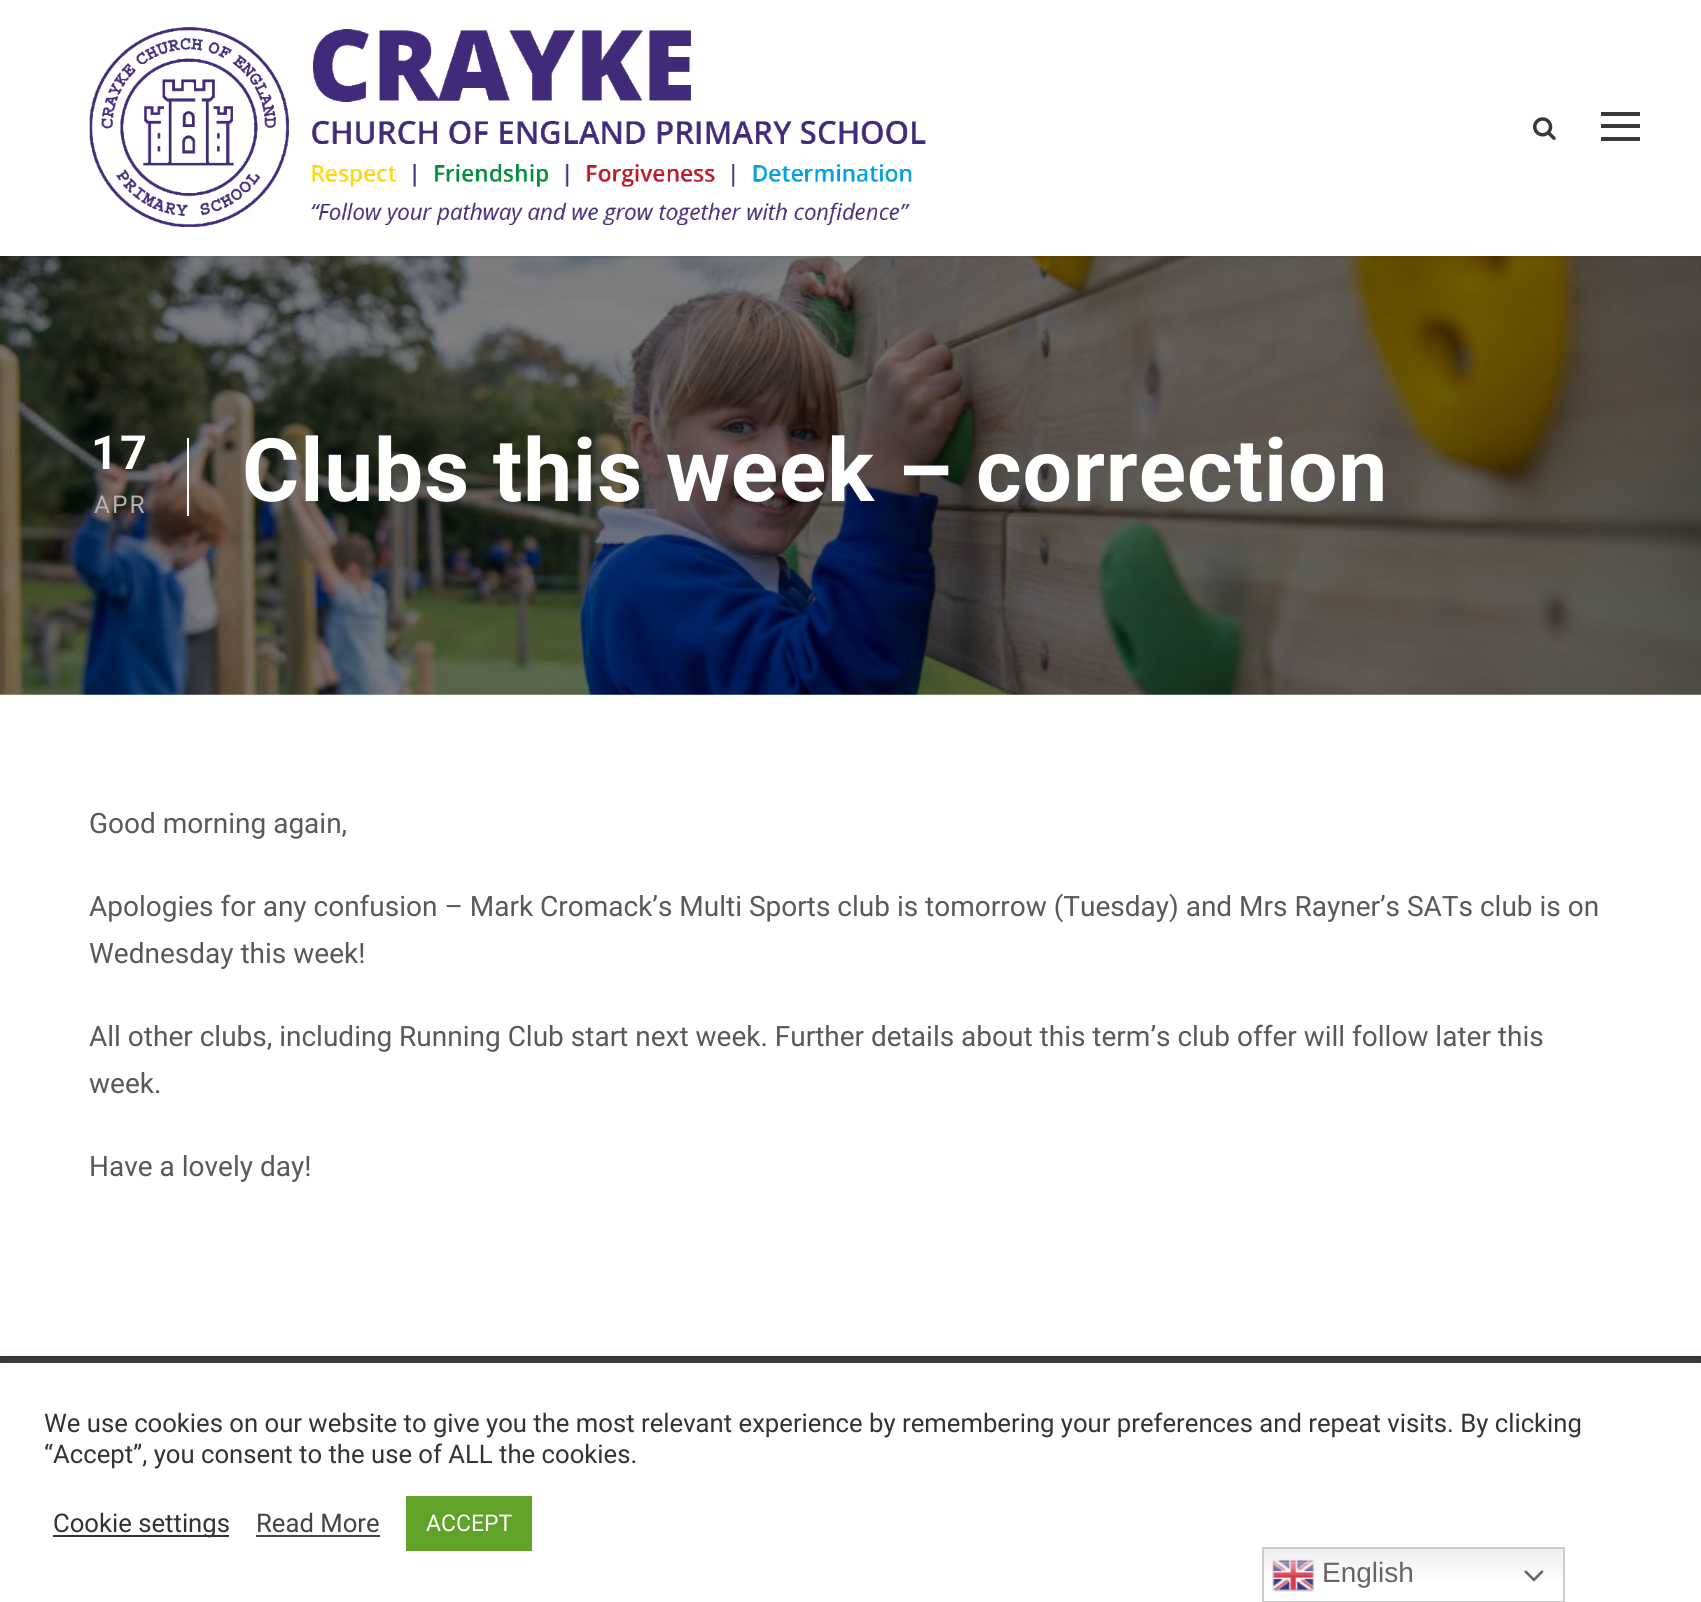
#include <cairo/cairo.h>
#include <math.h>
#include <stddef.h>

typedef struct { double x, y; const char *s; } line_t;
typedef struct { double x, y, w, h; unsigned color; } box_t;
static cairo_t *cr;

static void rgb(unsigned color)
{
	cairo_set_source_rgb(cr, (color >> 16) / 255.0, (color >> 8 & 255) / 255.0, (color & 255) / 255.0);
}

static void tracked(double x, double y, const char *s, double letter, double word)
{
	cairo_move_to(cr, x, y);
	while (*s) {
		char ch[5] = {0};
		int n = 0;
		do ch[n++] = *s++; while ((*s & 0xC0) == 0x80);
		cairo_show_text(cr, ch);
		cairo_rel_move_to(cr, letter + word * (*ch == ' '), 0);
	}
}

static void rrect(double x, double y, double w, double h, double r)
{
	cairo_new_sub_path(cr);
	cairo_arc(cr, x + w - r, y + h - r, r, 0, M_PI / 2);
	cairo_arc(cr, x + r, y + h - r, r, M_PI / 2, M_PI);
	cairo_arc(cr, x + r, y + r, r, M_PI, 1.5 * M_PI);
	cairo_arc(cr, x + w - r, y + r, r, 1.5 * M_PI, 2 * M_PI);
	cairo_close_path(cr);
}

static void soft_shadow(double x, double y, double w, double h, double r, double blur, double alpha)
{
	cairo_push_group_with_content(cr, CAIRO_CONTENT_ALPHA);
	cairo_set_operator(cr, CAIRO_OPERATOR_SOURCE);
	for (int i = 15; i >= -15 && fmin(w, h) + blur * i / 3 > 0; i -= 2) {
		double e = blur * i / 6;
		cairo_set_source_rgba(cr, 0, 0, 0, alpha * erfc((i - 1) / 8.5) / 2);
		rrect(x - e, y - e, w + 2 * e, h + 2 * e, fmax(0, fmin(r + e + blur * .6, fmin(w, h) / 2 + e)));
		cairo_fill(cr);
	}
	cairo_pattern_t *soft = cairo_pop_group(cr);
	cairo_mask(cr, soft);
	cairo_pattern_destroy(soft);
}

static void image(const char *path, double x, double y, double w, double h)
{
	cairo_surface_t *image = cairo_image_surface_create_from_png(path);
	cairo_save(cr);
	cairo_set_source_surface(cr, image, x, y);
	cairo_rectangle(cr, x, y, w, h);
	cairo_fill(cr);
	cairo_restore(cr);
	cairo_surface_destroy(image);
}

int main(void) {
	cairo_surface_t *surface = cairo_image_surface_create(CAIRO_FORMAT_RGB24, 1701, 1602);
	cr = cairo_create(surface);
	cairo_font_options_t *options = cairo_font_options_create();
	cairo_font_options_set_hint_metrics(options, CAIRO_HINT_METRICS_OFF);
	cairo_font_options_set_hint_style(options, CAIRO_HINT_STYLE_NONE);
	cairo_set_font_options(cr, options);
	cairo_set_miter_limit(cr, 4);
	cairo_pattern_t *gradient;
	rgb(0xffffff);
	cairo_paint(cr);
	image("img/3.png", 0, 256, 1701, 439);
	rgb(0x000000);
	soft_shadow(0, 2, 1701, 255, 0, 2, 0.1);
	rgb(0xffffff);
	cairo_rectangle(cr, 0, 0, 1701, 256);
	cairo_fill(cr);
	image("img/1.png", 89, 27, 837, 200);
	image("img/2.png", 1533, 117, 23, 23);
	{
		static const box_t items[] = {
			{1601, 112, 39, 4, 0x383838},
			{1601, 124, 39, 4, 0x383838},
			{1601, 137, 39, 4, 0x383838},
			{187, 438, 2, 78, 0xffffff},
			{0, 1356, 1701, 7, 0x282828},
		};
		for (size_t i = 0; i < sizeof items / sizeof *items; i++) {
			rgb(items[i].color);
			cairo_rectangle(cr, items[i].x, items[i].y, items[i].w, items[i].h);
			cairo_fill(cr);
		}
	}
	rgb(0xacabab);
	soft_shadow(0, 1362, 1701, 239, 0, 9, 0.3);
	{
		static const box_t items[] = {
			{0, 1363, 1701, 239, 0xffffff},
			{53, 1535, 176, 2, 0x333333},
			{256, 1535, 124, 2, 0x444444},
			{406, 1496, 126, 55, 0x61a229},
		};
		for (size_t i = 0; i < sizeof items / sizeof *items; i++) {
			rgb(items[i].color);
			cairo_rectangle(cr, items[i].x, items[i].y, items[i].w, items[i].h);
			cairo_fill(cr);
		}
	}
	gradient = cairo_pattern_create_linear(1413, 1547, 1413, 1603);
	cairo_pattern_add_color_stop_rgba(gradient, 0, 0.937, 0.937, 0.937, 1);
	cairo_pattern_add_color_stop_rgba(gradient, 0.7, 1, 1, 1, 1);
	cairo_set_source(cr, gradient);
	cairo_pattern_destroy(gradient);
	cairo_rectangle(cr, 1264, 1549, 299, 31);
	cairo_fill(cr);
	cairo_rectangle(cr, 1263, 1548, 301, 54);
	rgb(0xcccccc);
	cairo_stroke(cr);
	image("img/4.png", 1272, 1559, 43, 33);
	image("img/5.png", 1524, 1570, 20, 12);
	cairo_select_font_face(cr, "Roboto", CAIRO_FONT_SLANT_NORMAL, CAIRO_FONT_WEIGHT_BOLD);
	cairo_set_font_size(cr, 47);
	rgb(0xffffff);
	tracked(91, 469, "17", 2, 0);
	cairo_select_font_face(cr, "Roboto", CAIRO_FONT_SLANT_NORMAL, CAIRO_FONT_WEIGHT_NORMAL);
	cairo_set_font_size(cr, 24.5);
	rgb(0xb1b1b1);
	tracked(94, 513, "APR", 2, 0);
	cairo_select_font_face(cr, "Roboto", CAIRO_FONT_SLANT_NORMAL, CAIRO_FONT_WEIGHT_BOLD);
	cairo_set_font_size(cr, 87.5);
	rgb(0xffffff);
	tracked(242, 501, "Clubs this week – correction", 0.9, 0);
	cairo_select_font_face(cr, "Roboto", CAIRO_FONT_SLANT_NORMAL, CAIRO_FONT_WEIGHT_NORMAL);
	cairo_set_font_size(cr, 28);
	rgb(0x595959);
	{
		static const line_t items[] = {
			{89, 833, "Good morning again,"},
			{89, 916, "Apologies for any confusion – Mark Cromack’s Multi Sports club is tomorrow (Tuesday) and Mrs Rayner’s SATs club is on"},
			{89, 963, "Wednesday this week!"},
			{89, 1046, "All other clubs, including Running Club start next week. Further details about this term’s club offer will follow later this"},
			{89, 1093, "week."},
			{89, 1176, "Have a lovely day!"},
		};
		for (size_t i = 0; i < sizeof items / sizeof *items; i++) {
			cairo_move_to(cr, items[i].x, items[i].y);
			cairo_show_text(cr, items[i].s);
		}
	}
	cairo_set_font_size(cr, 25.67);
	rgb(0x333333);
	{
		static const line_t items[] = {
			{44, 1432, "We use cookies on our website to give you the most relevant experience by remembering your preferences and repeat visits. By clicking"},
			{44, 1463, "“Accept”, you consent to the use of ALL the cookies."},
			{53, 1532, "Cookie settings"},
		};
		for (size_t i = 0; i < sizeof items / sizeof *items; i++) {
			cairo_move_to(cr, items[i].x, items[i].y);
			cairo_show_text(cr, items[i].s);
		}
	}
	rgb(0x444444);
	cairo_move_to(cr, 256, 1532);
	cairo_show_text(cr, "Read More");
	cairo_set_font_size(cr, 23);
	rgb(0xffffff);
	cairo_move_to(cr, 426, 1531);
	cairo_show_text(cr, "ACCEPT");
	cairo_select_font_face(cr, "Liberation Sans", CAIRO_FONT_SLANT_NORMAL, CAIRO_FONT_WEIGHT_NORMAL);
	cairo_set_font_size(cr, 28);
	rgb(0x666666);
	cairo_move_to(cr, 1322, 1582);
	cairo_show_text(cr, "English");
	cairo_surface_write_to_png(surface, "page.png");
	cairo_font_options_destroy(options);
	cairo_destroy(cr);
	cairo_surface_destroy(surface);
	return 0;
}
